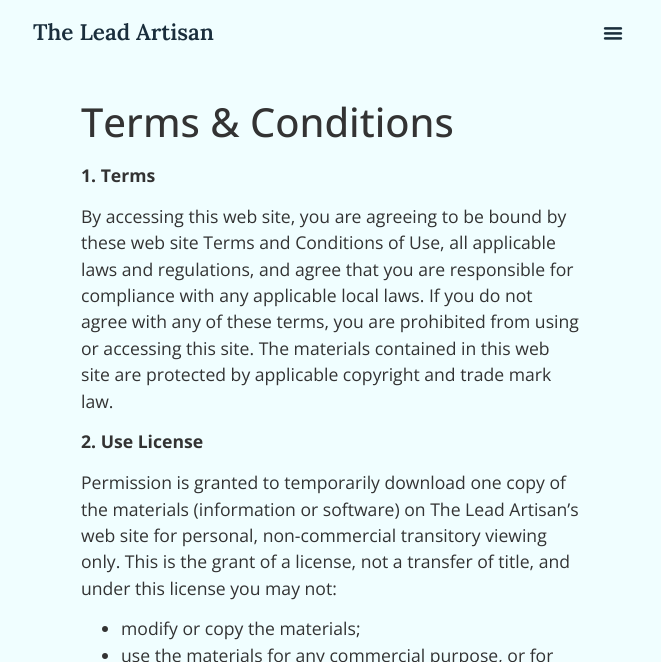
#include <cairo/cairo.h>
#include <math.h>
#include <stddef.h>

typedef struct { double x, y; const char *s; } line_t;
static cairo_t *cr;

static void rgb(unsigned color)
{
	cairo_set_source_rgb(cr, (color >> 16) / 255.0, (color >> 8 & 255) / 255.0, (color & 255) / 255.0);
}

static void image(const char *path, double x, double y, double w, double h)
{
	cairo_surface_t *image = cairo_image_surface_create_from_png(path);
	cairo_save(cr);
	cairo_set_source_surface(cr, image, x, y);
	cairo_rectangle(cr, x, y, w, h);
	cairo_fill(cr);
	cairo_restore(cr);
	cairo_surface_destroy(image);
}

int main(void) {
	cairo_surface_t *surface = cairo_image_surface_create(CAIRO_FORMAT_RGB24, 661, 662);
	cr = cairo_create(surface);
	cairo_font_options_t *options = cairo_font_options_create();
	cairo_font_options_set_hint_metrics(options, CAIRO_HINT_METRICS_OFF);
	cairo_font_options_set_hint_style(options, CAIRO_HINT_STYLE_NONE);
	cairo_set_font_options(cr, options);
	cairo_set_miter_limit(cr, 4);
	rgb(0xf0feff);
	cairo_paint(cr);
	image("img/1.png", 603, 27, 20, 13);
	rgb(0x333333);
	cairo_arc(cr, 105, 629, 3, 0, 2 * M_PI);
	cairo_fill(cr);
	cairo_arc(cr, 105, 656, 3, 0, 2 * M_PI);
	cairo_fill(cr);
	cairo_select_font_face(cr, "Lora SemiBold", CAIRO_FONT_SLANT_NORMAL, CAIRO_FONT_WEIGHT_NORMAL);
	cairo_set_font_size(cr, 22.5);
	rgb(0x1a2e3c);
	cairo_move_to(cr, 33, 40);
	cairo_show_text(cr, "The Lead Artisan");
	cairo_select_font_face(cr, "Open Sans Medium", CAIRO_FONT_SLANT_NORMAL, CAIRO_FONT_WEIGHT_NORMAL);
	cairo_set_font_size(cr, 40);
	rgb(0x333333);
	cairo_move_to(cr, 81, 137);
	cairo_show_text(cr, "Terms & Conditions");
	cairo_select_font_face(cr, "Open Sans", CAIRO_FONT_SLANT_NORMAL, CAIRO_FONT_WEIGHT_BOLD);
	cairo_set_font_size(cr, 17.6);
	cairo_move_to(cr, 81, 182);
	cairo_show_text(cr, "1. Terms");
	cairo_select_font_face(cr, "Open Sans", CAIRO_FONT_SLANT_NORMAL, CAIRO_FONT_WEIGHT_NORMAL);
	{
		static const line_t items[] = {
			{81, 223, "By accessing this web site, you are agreeing to be bound by"},
			{81, 249, "these web site Terms and Conditions of Use, all applicable"},
			{81, 276, "laws and regulations, and agree that you are responsible for"},
			{81, 302, "compliance with any applicable local laws. If you do not"},
			{81, 328, "agree with any of these terms, you are prohibited from using"},
			{81, 355, "or accessing this site. The materials contained in this web"},
			{81, 381, "site are protected by applicable copyright and trade mark"},
			{81, 408, "law."},
		};
		for (size_t i = 0; i < sizeof items / sizeof *items; i++) {
			cairo_move_to(cr, items[i].x, items[i].y);
			cairo_show_text(cr, items[i].s);
		}
	}
	cairo_select_font_face(cr, "Open Sans", CAIRO_FONT_SLANT_NORMAL, CAIRO_FONT_WEIGHT_BOLD);
	cairo_move_to(cr, 81, 448);
	cairo_show_text(cr, "2. Use License");
	cairo_select_font_face(cr, "Open Sans", CAIRO_FONT_SLANT_NORMAL, CAIRO_FONT_WEIGHT_NORMAL);
	{
		static const line_t items[] = {
			{81, 489, "Permission is granted to temporarily download one copy of"},
			{81, 516, "the materials (information or software) on The Lead Artisan’s"},
			{81, 542, "web site for personal, non-commercial transitory viewing"},
			{81, 568, "only. This is the grant of a license, not a transfer of title, and"},
			{81, 595, "under this license you may not:"},
			{121, 635, "modify or copy the materials;"},
			{121, 662, "use the materials for any commercial purpose, or for"},
		};
		for (size_t i = 0; i < sizeof items / sizeof *items; i++) {
			cairo_move_to(cr, items[i].x, items[i].y);
			cairo_show_text(cr, items[i].s);
		}
	}
	cairo_surface_write_to_png(surface, "page.png");
	cairo_font_options_destroy(options);
	cairo_destroy(cr);
	cairo_surface_destroy(surface);
	return 0;
}
